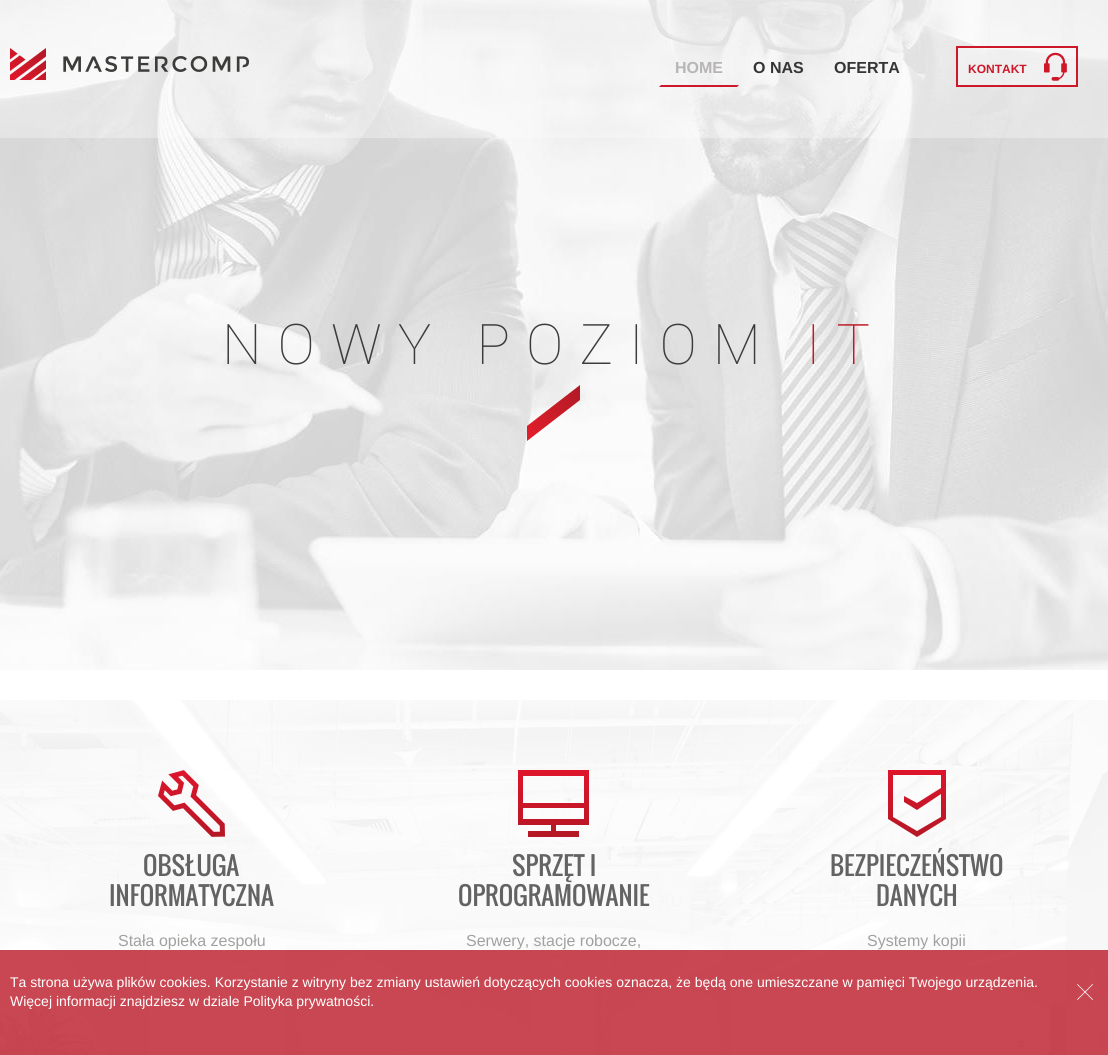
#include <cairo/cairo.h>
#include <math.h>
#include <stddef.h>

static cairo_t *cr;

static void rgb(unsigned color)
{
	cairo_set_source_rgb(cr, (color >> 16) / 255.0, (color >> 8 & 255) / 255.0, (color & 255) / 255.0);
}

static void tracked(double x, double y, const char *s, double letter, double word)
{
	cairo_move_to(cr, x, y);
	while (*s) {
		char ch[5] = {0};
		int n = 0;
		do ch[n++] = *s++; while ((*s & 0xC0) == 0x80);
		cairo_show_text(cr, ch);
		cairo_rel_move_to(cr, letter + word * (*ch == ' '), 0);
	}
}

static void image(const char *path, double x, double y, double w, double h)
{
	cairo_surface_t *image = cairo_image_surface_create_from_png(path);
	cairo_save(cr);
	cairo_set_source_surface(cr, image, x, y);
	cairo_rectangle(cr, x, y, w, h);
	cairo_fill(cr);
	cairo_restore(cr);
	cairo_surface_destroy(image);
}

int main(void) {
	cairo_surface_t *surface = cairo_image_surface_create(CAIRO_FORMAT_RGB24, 1108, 1055);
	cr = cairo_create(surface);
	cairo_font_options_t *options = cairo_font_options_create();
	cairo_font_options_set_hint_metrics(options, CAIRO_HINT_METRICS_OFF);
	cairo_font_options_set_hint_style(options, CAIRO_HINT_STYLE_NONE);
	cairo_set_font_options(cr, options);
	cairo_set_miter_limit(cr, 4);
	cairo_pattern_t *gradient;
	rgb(0xffffff);
	cairo_paint(cr);
	image("img/3.png", 0, 0, 1108, 670);
	cairo_set_source_rgba(cr, 0.992, 0.992, 0.992, 0.34);
	cairo_rectangle(cr, 0, 0, 1108, 138);
	cairo_fill(cr);
	image("img/1.png", 10, 48, 239, 32);
	rgb(0xce1729);
	cairo_new_path(cr);
	cairo_move_to(cr, 661, 85);
	cairo_line_to(cr, 739, 85);
	cairo_line_to(cr, 737, 87);
	cairo_line_to(cr, 659, 87);
	cairo_close_path(cr);
	cairo_fill(cr);
	cairo_set_source_rgba(cr, 0.976, 0.976, 0.976, 0.53);
	cairo_rectangle(cr, 957, 47, 120, 39);
	cairo_fill_preserve(cr);
	rgb(0xce1729);
	cairo_stroke(cr);
	image("img/2.png", 1044, 52, 23, 29);
	gradient = cairo_pattern_create_linear(586, 386, 523, 438);
	cairo_pattern_add_color_stop_rgba(gradient, 0, 0.678, 0.098, 0.145, 1);
	cairo_pattern_add_color_stop_rgba(gradient, 1, 0.898, 0.118, 0.169, 1);
	cairo_set_source(cr, gradient);
	cairo_pattern_destroy(gradient);
	cairo_new_path(cr);
	cairo_move_to(cr, 527, 426);
	cairo_line_to(cr, 527, 441);
	cairo_line_to(cr, 580, 400);
	cairo_line_to(cr, 580, 385);
	cairo_close_path(cr);
	cairo_fill(cr);
	image("img/4.png", 0, 700, 1108, 355);
	image("img/5.png", 158, 770, 67, 67);
	gradient = cairo_pattern_create_linear(554, 836, 554, 770);
	cairo_pattern_add_color_stop_rgba(gradient, 0, 0.71, 0.094, 0.149, 1);
	cairo_pattern_add_color_stop_rgba(gradient, 1, 0.871, 0.082, 0.169, 1);
	cairo_set_source(cr, gradient);
	cairo_pattern_destroy(gradient);
	cairo_new_path(cr);
	cairo_move_to(cr, 589, 825);
	cairo_line_to(cr, 589, 770);
	cairo_line_to(cr, 518, 770);
	cairo_line_to(cr, 518, 825);
	cairo_line_to(cr, 551, 825);
	cairo_line_to(cr, 551, 831);
	cairo_line_to(cr, 528, 831);
	cairo_line_to(cr, 528, 837);
	cairo_line_to(cr, 579, 837);
	cairo_line_to(cr, 579, 831);
	cairo_line_to(cr, 556, 831);
	cairo_line_to(cr, 556, 825);
	cairo_close_path(cr);
	cairo_move_to(cr, 523, 776);
	cairo_line_to(cr, 584, 776);
	cairo_line_to(cr, 584, 803);
	cairo_line_to(cr, 523, 803);
	cairo_close_path(cr);
	cairo_move_to(cr, 523, 819);
	cairo_line_to(cr, 523, 808);
	cairo_line_to(cr, 584, 808);
	cairo_line_to(cr, 584, 819);
	cairo_close_path(cr);
	cairo_fill(cr);
	gradient = cairo_pattern_create_linear(917, 836, 917, 770);
	cairo_pattern_add_color_stop_rgba(gradient, 0, 0.71, 0.094, 0.149, 1);
	cairo_pattern_add_color_stop_rgba(gradient, 1, 0.871, 0.082, 0.169, 1);
	cairo_set_source(cr, gradient);
	cairo_pattern_destroy(gradient);
	cairo_new_path(cr);
	cairo_move_to(cr, 888, 770);
	cairo_line_to(cr, 888, 819);
	cairo_line_to(cr, 917, 837);
	cairo_line_to(cr, 946, 819);
	cairo_line_to(cr, 946, 770);
	cairo_close_path(cr);
	cairo_move_to(cr, 941, 817);
	cairo_line_to(cr, 917, 831);
	cairo_line_to(cr, 893, 817);
	cairo_line_to(cr, 893, 775);
	cairo_line_to(cr, 941, 775);
	cairo_line_to(cr, 941, 788);
	cairo_line_to(cr, 917, 803);
	cairo_line_to(cr, 904, 796);
	cairo_line_to(cr, 904, 802);
	cairo_line_to(cr, 917, 810);
	cairo_line_to(cr, 941, 794);
	cairo_close_path(cr);
	cairo_fill(cr);
	cairo_set_source_rgba(cr, 0.737, 0.098, 0.153, 0.8);
	cairo_rectangle(cr, 0, 950, 1108, 105);
	cairo_fill(cr);
	image("img/6.png", 1077, 984, 16, 16);
	cairo_select_font_face(cr, "Arimo", CAIRO_FONT_SLANT_NORMAL, CAIRO_FONT_WEIGHT_BOLD);
	cairo_set_font_size(cr, 16);
	rgb(0xb7b5b5);
	cairo_move_to(cr, 675, 73);
	cairo_show_text(cr, "HOME");
	rgb(0x363535);
	cairo_move_to(cr, 753, 73);
	cairo_show_text(cr, "O NAS");
	cairo_move_to(cr, 834, 73);
	cairo_show_text(cr, "OFERTA");
	cairo_set_font_size(cr, 12);
	rgb(0xce1729);
	cairo_move_to(cr, 968, 73);
	cairo_show_text(cr, "KONTAKT");
	cairo_select_font_face(cr, "Roboto Thin", CAIRO_FONT_SLANT_NORMAL, CAIRO_FONT_WEIGHT_NORMAL);
	cairo_set_font_size(cr, 56);
	rgb(0x3c3c3b);
	tracked(222, 364, "NOWY POZIOM", 16, 0);
	rgb(0xbd1927);
	tracked(806, 364, "IT", 16, 0);
	cairo_select_font_face(cr, "Oswald", CAIRO_FONT_SLANT_NORMAL, CAIRO_FONT_WEIGHT_NORMAL);
	cairo_set_font_size(cr, 25);
	rgb(0x636363);
	cairo_move_to(cr, 143, 876);
	cairo_show_text(cr, "OBSŁUGA");
	cairo_move_to(cr, 109, 906);
	cairo_show_text(cr, "INFORMATYCZNA");
	cairo_select_font_face(cr, "Arimo", CAIRO_FONT_SLANT_NORMAL, CAIRO_FONT_WEIGHT_NORMAL);
	cairo_set_font_size(cr, 16);
	rgb(0xa1a1a0);
	cairo_move_to(cr, 118, 946);
	cairo_show_text(cr, "Stała opieka zespołu");
	cairo_select_font_face(cr, "Oswald", CAIRO_FONT_SLANT_NORMAL, CAIRO_FONT_WEIGHT_NORMAL);
	cairo_set_font_size(cr, 25);
	rgb(0x636363);
	cairo_move_to(cr, 512, 876);
	cairo_show_text(cr, "SPRZĘT I");
	cairo_move_to(cr, 458, 906);
	cairo_show_text(cr, "OPROGRAMOWANIE");
	cairo_select_font_face(cr, "Arimo", CAIRO_FONT_SLANT_NORMAL, CAIRO_FONT_WEIGHT_NORMAL);
	cairo_set_font_size(cr, 16);
	rgb(0xa1a1a0);
	cairo_move_to(cr, 466, 946);
	cairo_show_text(cr, "Serwery, stacje robocze,");
	cairo_select_font_face(cr, "Oswald", CAIRO_FONT_SLANT_NORMAL, CAIRO_FONT_WEIGHT_NORMAL);
	cairo_set_font_size(cr, 25);
	rgb(0x636363);
	cairo_move_to(cr, 830, 876);
	cairo_show_text(cr, "BEZPIECZEŃSTWO");
	cairo_move_to(cr, 876, 906);
	cairo_show_text(cr, "DANYCH");
	cairo_select_font_face(cr, "Arimo", CAIRO_FONT_SLANT_NORMAL, CAIRO_FONT_WEIGHT_NORMAL);
	cairo_set_font_size(cr, 16);
	rgb(0xa1a1a0);
	cairo_move_to(cr, 867, 946);
	cairo_show_text(cr, "Systemy kopii");
	cairo_set_font_size(cr, 14);
	rgb(0xffffff);
	cairo_move_to(cr, 10, 987);
	cairo_show_text(cr, "Ta strona używa plików cookies. Korzystanie z witryny bez zmiany ustawień dotyczących cookies oznacza, że będą one umieszczane w pamięci Twojego urządzenia.");
	cairo_move_to(cr, 10, 1006);
	cairo_show_text(cr, "Więcej informacji znajdziesz w dziale Polityka prywatności.");
	cairo_surface_write_to_png(surface, "page.png");
	cairo_font_options_destroy(options);
	cairo_destroy(cr);
	cairo_surface_destroy(surface);
	return 0;
}
